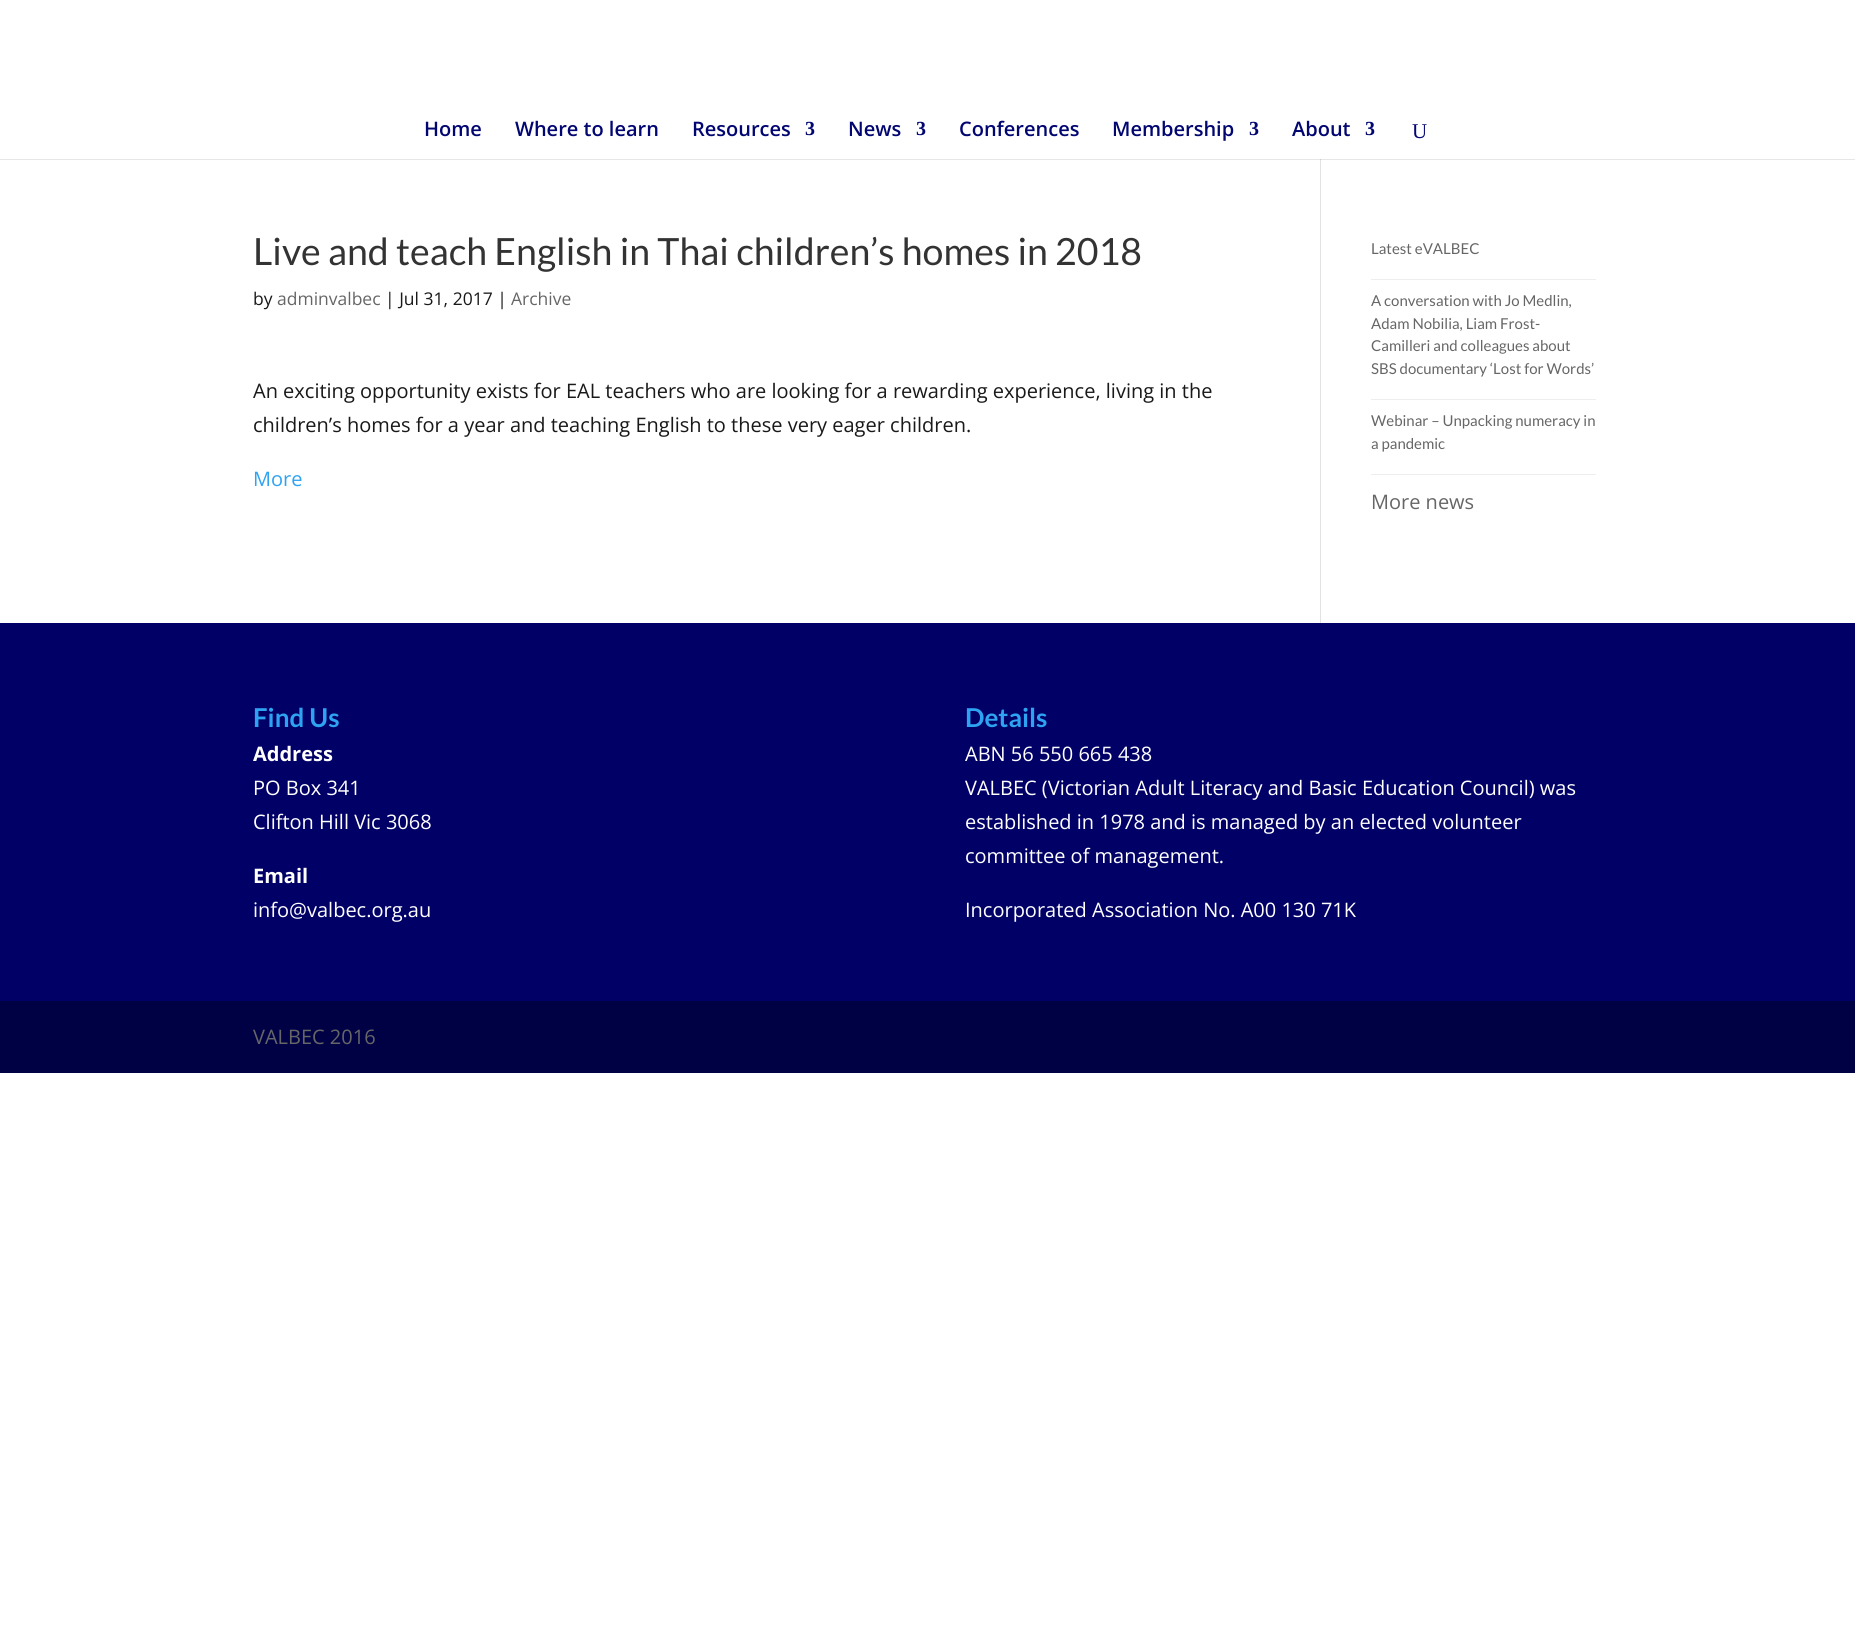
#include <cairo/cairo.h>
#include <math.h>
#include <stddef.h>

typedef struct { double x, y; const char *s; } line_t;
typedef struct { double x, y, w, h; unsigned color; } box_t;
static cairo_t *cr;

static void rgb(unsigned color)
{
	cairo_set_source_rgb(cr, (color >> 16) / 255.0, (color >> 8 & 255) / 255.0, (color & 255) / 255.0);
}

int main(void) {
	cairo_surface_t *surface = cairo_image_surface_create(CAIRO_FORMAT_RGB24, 1855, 1632);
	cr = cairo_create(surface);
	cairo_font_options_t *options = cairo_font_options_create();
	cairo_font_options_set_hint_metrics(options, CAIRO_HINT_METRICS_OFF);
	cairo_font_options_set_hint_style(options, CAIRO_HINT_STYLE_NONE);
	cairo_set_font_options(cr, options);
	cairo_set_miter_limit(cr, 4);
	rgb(0xffffff);
	cairo_paint(cr);
	{
		static const box_t items[] = {
			{0, 159, 1855, 1, 0xe6e6e6},
			{1320, 159, 1, 464, 0xe2e2e2},
			{1320, 159, 1, 1, 0xcbcbcb},
			{1371, 279, 225, 1, 0xeeeeee},
			{1371, 399, 225, 1, 0xeeeeee},
			{1371, 474, 225, 1, 0xeeeeee},
			{0, 623, 1855, 378, 0x000066},
			{0, 1001, 1855, 72, 0x000045},
		};
		for (size_t i = 0; i < sizeof items / sizeof *items; i++) {
			rgb(items[i].color);
			cairo_rectangle(cr, items[i].x, items[i].y, items[i].w, items[i].h);
			cairo_fill(cr);
		}
	}
	cairo_select_font_face(cr, "Open Sans SemiBold", CAIRO_FONT_SLANT_NORMAL, CAIRO_FONT_WEIGHT_NORMAL);
	cairo_set_font_size(cr, 20);
	rgb(0x020671);
	{
		static const line_t items[] = {
			{424, 136, "Home"},
			{515, 136, "Where to learn"},
			{692, 136, "Resources"},
		};
		for (size_t i = 0; i < sizeof items / sizeof *items; i++) {
			cairo_move_to(cr, items[i].x, items[i].y);
			cairo_show_text(cr, items[i].s);
		}
	}
	cairo_select_font_face(cr, "Liberation Serif", CAIRO_FONT_SLANT_NORMAL, CAIRO_FONT_WEIGHT_BOLD);
	cairo_move_to(cr, 805, 135);
	cairo_show_text(cr, "3");
	cairo_select_font_face(cr, "Open Sans SemiBold", CAIRO_FONT_SLANT_NORMAL, CAIRO_FONT_WEIGHT_NORMAL);
	cairo_move_to(cr, 848, 136);
	cairo_show_text(cr, "News");
	cairo_select_font_face(cr, "Liberation Serif", CAIRO_FONT_SLANT_NORMAL, CAIRO_FONT_WEIGHT_BOLD);
	cairo_move_to(cr, 916, 135);
	cairo_show_text(cr, "3");
	cairo_select_font_face(cr, "Open Sans SemiBold", CAIRO_FONT_SLANT_NORMAL, CAIRO_FONT_WEIGHT_NORMAL);
	cairo_move_to(cr, 959, 136);
	cairo_show_text(cr, "Conferences");
	cairo_move_to(cr, 1112, 136);
	cairo_show_text(cr, "Membership");
	cairo_select_font_face(cr, "Liberation Serif", CAIRO_FONT_SLANT_NORMAL, CAIRO_FONT_WEIGHT_BOLD);
	cairo_move_to(cr, 1249, 135);
	cairo_show_text(cr, "3");
	cairo_select_font_face(cr, "Open Sans SemiBold", CAIRO_FONT_SLANT_NORMAL, CAIRO_FONT_WEIGHT_NORMAL);
	cairo_move_to(cr, 1292, 136);
	cairo_show_text(cr, "About");
	cairo_select_font_face(cr, "Liberation Serif", CAIRO_FONT_SLANT_NORMAL, CAIRO_FONT_WEIGHT_BOLD);
	cairo_move_to(cr, 1365, 135);
	cairo_show_text(cr, "3");
	cairo_select_font_face(cr, "Liberation Serif", CAIRO_FONT_SLANT_NORMAL, CAIRO_FONT_WEIGHT_NORMAL);
	cairo_set_font_size(cr, 21);
	cairo_move_to(cr, 1412, 138);
	cairo_show_text(cr, "U");
	cairo_select_font_face(cr, "Lato", CAIRO_FONT_SLANT_NORMAL, CAIRO_FONT_WEIGHT_NORMAL);
	cairo_set_font_size(cr, 37.5);
	rgb(0x333333);
	cairo_move_to(cr, 253, 265);
	cairo_show_text(cr, "Live and teach English in Thai children’s homes in 2018");
	cairo_select_font_face(cr, "Open Sans", CAIRO_FONT_SLANT_NORMAL, CAIRO_FONT_WEIGHT_NORMAL);
	cairo_set_font_size(cr, 17.5);
	rgb(0x191919);
	cairo_move_to(cr, 253, 305);
	cairo_show_text(cr, "by");
	rgb(0x666666);
	cairo_move_to(cr, 277, 305);
	cairo_show_text(cr, "adminvalbec");
	rgb(0x191919);
	cairo_move_to(cr, 385, 305);
	cairo_show_text(cr, "| Jul 31, 2017 |");
	rgb(0x666666);
	cairo_move_to(cr, 511, 305);
	cairo_show_text(cr, "Archive");
	cairo_set_font_size(cr, 20);
	rgb(0x191919);
	cairo_move_to(cr, 253, 398);
	cairo_show_text(cr, "An exciting opportunity exists for EAL teachers who are looking for a rewarding experience, living in the");
	cairo_move_to(cr, 253, 432);
	cairo_show_text(cr, "children’s homes for a year and teaching English to these very eager children.");
	rgb(0x2ea3f2);
	cairo_move_to(cr, 253, 486);
	cairo_show_text(cr, "More");
	cairo_select_font_face(cr, "Lato", CAIRO_FONT_SLANT_NORMAL, CAIRO_FONT_WEIGHT_NORMAL);
	cairo_set_font_size(cr, 15);
	rgb(0x666666);
	{
		static const line_t items[] = {
			{1371, 254, "Latest eVALBEC"},
			{1371, 306, "A conversation with Jo Medlin,"},
			{1371, 329, "Adam Nobilia, Liam Frost-"},
			{1371, 351, "Camilleri and colleagues about"},
			{1371, 374, "SBS documentary ‘Lost for Words’"},
			{1371, 426, "Webinar – Unpacking numeracy in"},
			{1371, 449, "a pandemic"},
		};
		for (size_t i = 0; i < sizeof items / sizeof *items; i++) {
			cairo_move_to(cr, items[i].x, items[i].y);
			cairo_show_text(cr, items[i].s);
		}
	}
	cairo_select_font_face(cr, "Open Sans", CAIRO_FONT_SLANT_NORMAL, CAIRO_FONT_WEIGHT_NORMAL);
	cairo_set_font_size(cr, 20);
	cairo_move_to(cr, 1371, 509);
	cairo_show_text(cr, "More news");
	cairo_select_font_face(cr, "Lato", CAIRO_FONT_SLANT_NORMAL, CAIRO_FONT_WEIGHT_BOLD);
	cairo_set_font_size(cr, 26);
	rgb(0x2ea3f2);
	cairo_move_to(cr, 253, 727);
	cairo_show_text(cr, "Find Us");
	cairo_select_font_face(cr, "Open Sans", CAIRO_FONT_SLANT_NORMAL, CAIRO_FONT_WEIGHT_BOLD);
	cairo_set_font_size(cr, 20);
	rgb(0xffffff);
	cairo_move_to(cr, 253, 761);
	cairo_show_text(cr, "Address");
	cairo_select_font_face(cr, "Open Sans", CAIRO_FONT_SLANT_NORMAL, CAIRO_FONT_WEIGHT_NORMAL);
	cairo_move_to(cr, 253, 795);
	cairo_show_text(cr, "PO Box 341");
	cairo_move_to(cr, 253, 829);
	cairo_show_text(cr, "Clifton Hill Vic 3068");
	cairo_select_font_face(cr, "Open Sans", CAIRO_FONT_SLANT_NORMAL, CAIRO_FONT_WEIGHT_BOLD);
	cairo_move_to(cr, 253, 883);
	cairo_show_text(cr, "Email");
	cairo_select_font_face(cr, "Open Sans", CAIRO_FONT_SLANT_NORMAL, CAIRO_FONT_WEIGHT_NORMAL);
	cairo_move_to(cr, 253, 917);
	cairo_show_text(cr, "info@valbec.org.au");
	cairo_select_font_face(cr, "Lato", CAIRO_FONT_SLANT_NORMAL, CAIRO_FONT_WEIGHT_BOLD);
	cairo_set_font_size(cr, 26);
	rgb(0x2ea3f2);
	cairo_move_to(cr, 965, 727);
	cairo_show_text(cr, "Details");
	cairo_select_font_face(cr, "Open Sans", CAIRO_FONT_SLANT_NORMAL, CAIRO_FONT_WEIGHT_NORMAL);
	cairo_set_font_size(cr, 20);
	rgb(0xffffff);
	{
		static const line_t items[] = {
			{965, 761, "ABN 56 550 665 438"},
			{965, 795, "VALBEC (Victorian Adult Literacy and Basic Education Council) was"},
			{965, 829, "established in 1978 and is managed by an elected volunteer"},
			{965, 863, "committee of management."},
			{965, 917, "Incorporated Association No. A00 130 71K"},
		};
		for (size_t i = 0; i < sizeof items / sizeof *items; i++) {
			cairo_move_to(cr, items[i].x, items[i].y);
			cairo_show_text(cr, items[i].s);
		}
	}
	rgb(0x666666);
	cairo_move_to(cr, 253, 1044);
	cairo_show_text(cr, "VALBEC 2016");
	cairo_surface_write_to_png(surface, "page.png");
	cairo_font_options_destroy(options);
	cairo_destroy(cr);
	cairo_surface_destroy(surface);
	return 0;
}
